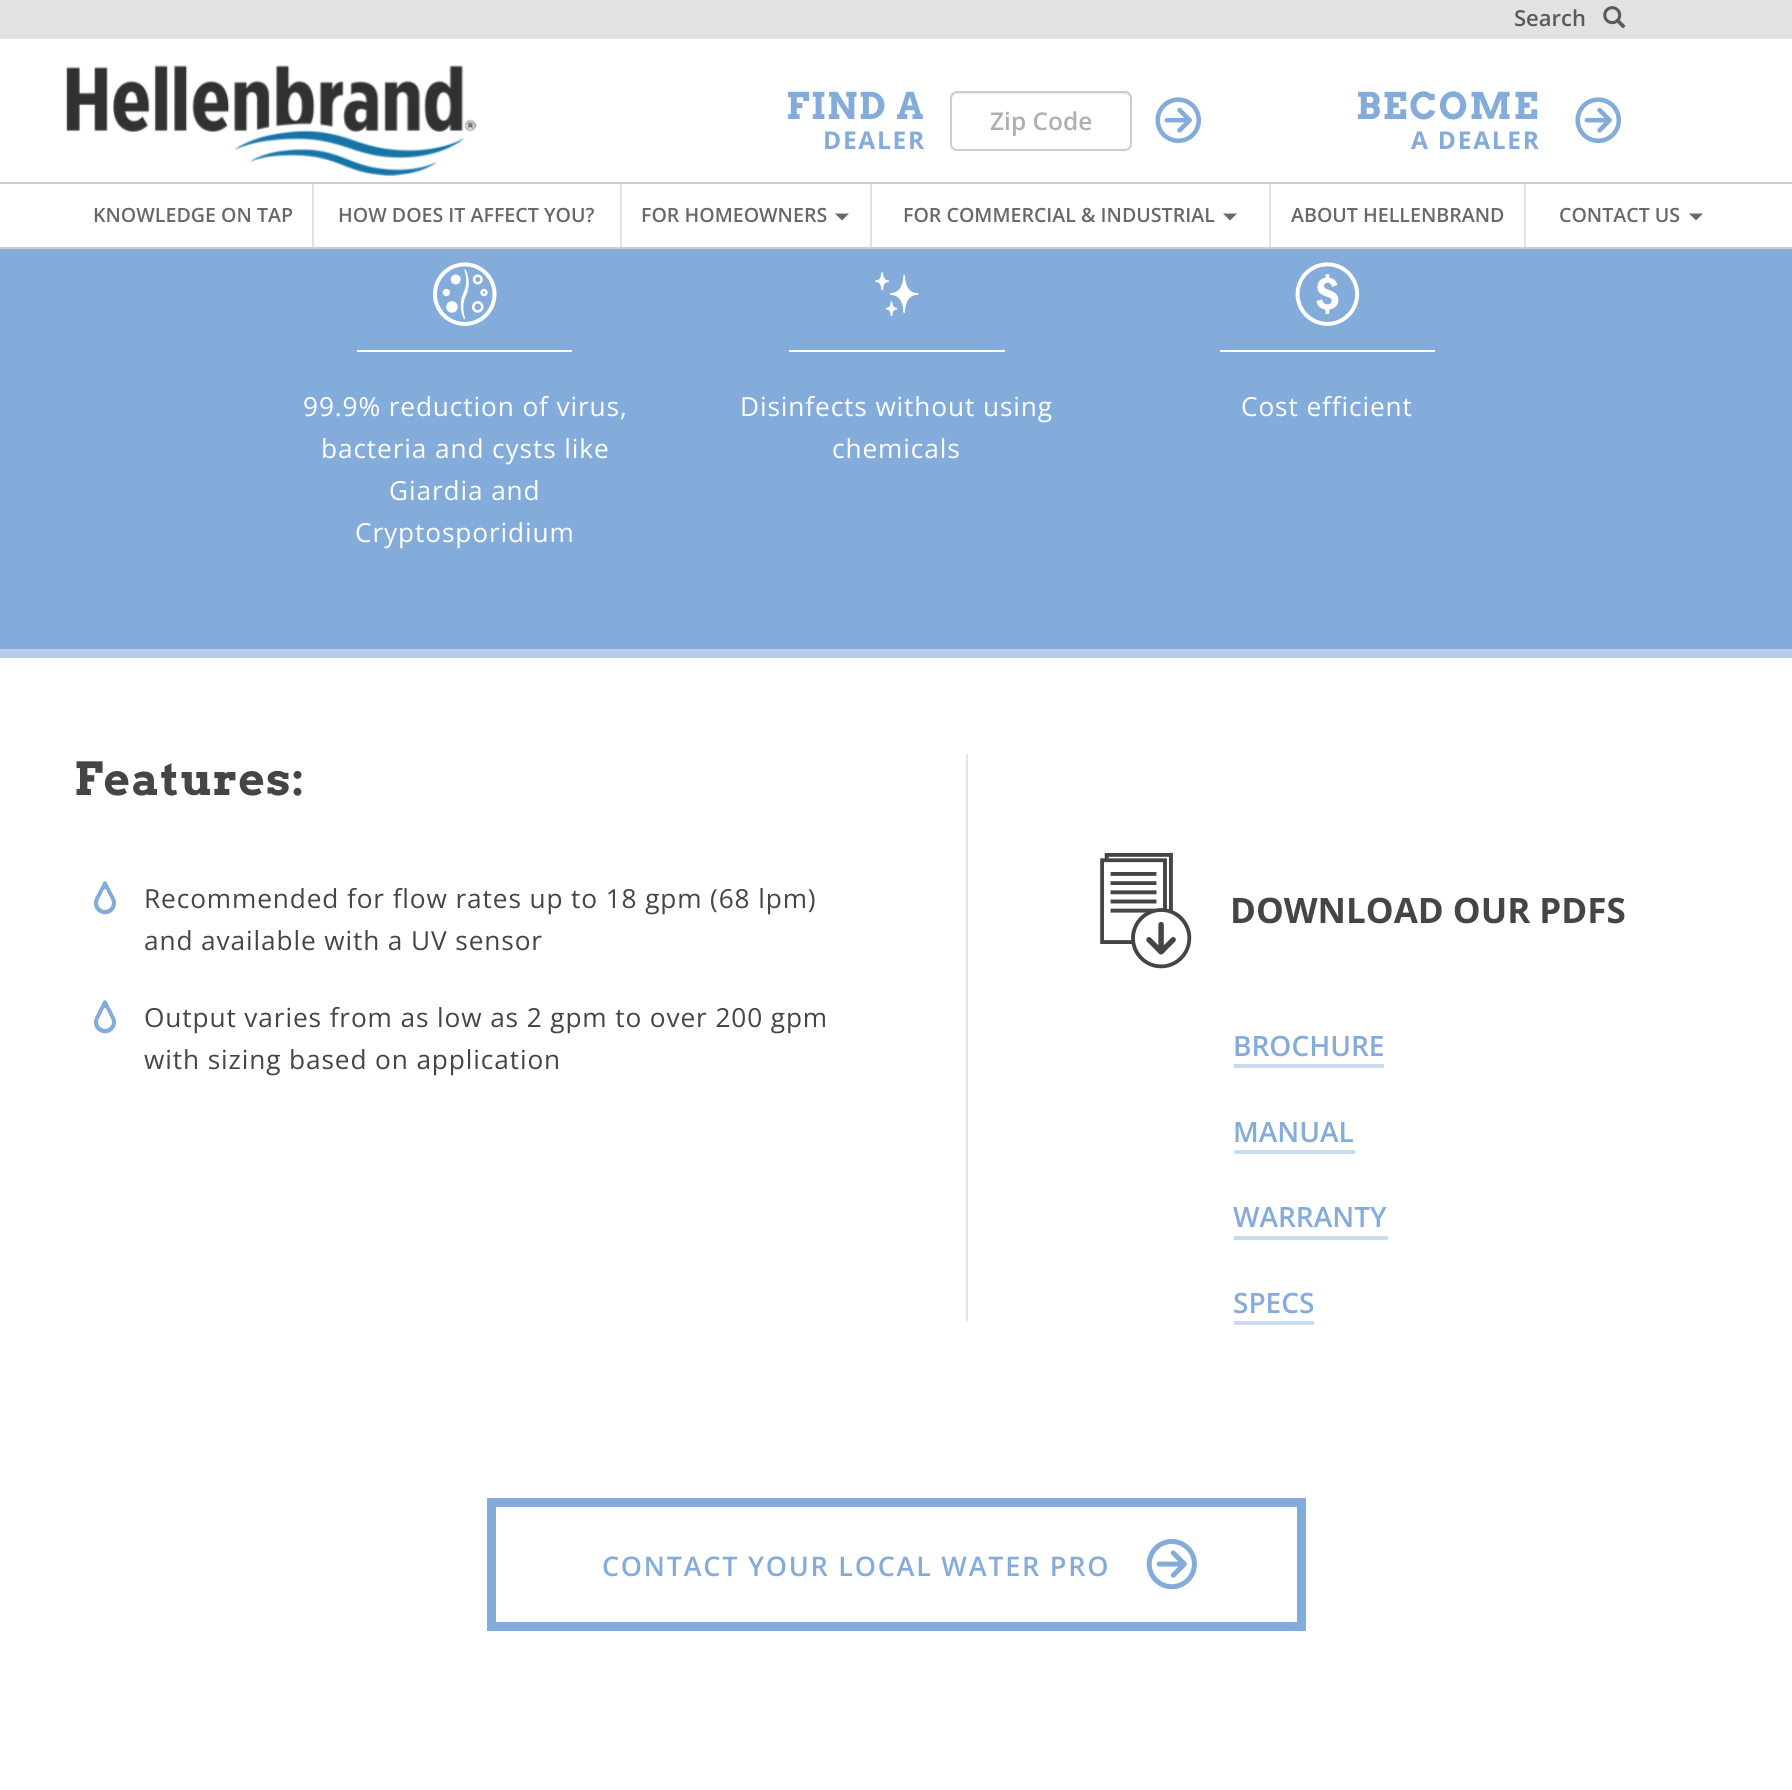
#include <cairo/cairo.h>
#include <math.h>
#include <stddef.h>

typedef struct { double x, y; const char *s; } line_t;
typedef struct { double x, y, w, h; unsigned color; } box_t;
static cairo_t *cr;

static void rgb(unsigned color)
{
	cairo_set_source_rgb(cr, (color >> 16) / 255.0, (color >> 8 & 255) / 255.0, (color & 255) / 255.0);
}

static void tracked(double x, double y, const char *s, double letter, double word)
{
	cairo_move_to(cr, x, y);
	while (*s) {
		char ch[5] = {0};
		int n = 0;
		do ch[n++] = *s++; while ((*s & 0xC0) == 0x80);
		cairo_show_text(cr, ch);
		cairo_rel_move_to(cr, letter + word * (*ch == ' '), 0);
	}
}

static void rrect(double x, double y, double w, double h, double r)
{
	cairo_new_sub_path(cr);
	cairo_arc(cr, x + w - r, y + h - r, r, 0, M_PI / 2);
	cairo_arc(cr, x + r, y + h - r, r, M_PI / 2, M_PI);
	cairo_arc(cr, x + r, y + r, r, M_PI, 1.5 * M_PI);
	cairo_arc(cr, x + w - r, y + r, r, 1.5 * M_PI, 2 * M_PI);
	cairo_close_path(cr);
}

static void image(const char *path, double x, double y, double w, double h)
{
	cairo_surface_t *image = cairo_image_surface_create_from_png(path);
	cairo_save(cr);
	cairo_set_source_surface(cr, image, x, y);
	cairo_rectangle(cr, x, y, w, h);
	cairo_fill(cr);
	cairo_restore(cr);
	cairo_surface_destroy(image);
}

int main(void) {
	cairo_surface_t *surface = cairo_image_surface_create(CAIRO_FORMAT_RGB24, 1792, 1790);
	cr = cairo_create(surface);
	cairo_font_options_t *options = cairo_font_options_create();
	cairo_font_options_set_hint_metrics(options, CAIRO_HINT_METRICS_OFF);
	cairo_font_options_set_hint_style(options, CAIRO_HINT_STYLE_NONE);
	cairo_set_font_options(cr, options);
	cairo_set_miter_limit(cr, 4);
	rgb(0xffffff);
	cairo_paint(cr);
	cairo_rectangle(cr, -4.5, 4.5, 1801, 649);
	rgb(0xb5cde9);
	cairo_set_line_width(cr, 9);
	cairo_stroke(cr);
	rgb(0xe2e2e2);
	cairo_rectangle(cr, 0, 0, 1792, 39);
	cairo_fill(cr);
	image("img/1.png", 1603, 6, 23, 23);
	image("img/2.png", 66, 65, 411, 112);
	rgb(0xececec);
	cairo_new_path(cr);
	cairo_move_to(cr, 957, 94);
	cairo_line_to(cr, 1125, 94);
	cairo_curve_to(cr, 1128, 94, 1130, 97, 1130, 100);
	cairo_line_to(cr, 1130, 145);
	cairo_line_to(cr, 1129, 148);
	cairo_curve_to(cr, 1130, 147, 1131, 145, 1131, 144);
	cairo_line_to(cr, 1131, 98);
	cairo_curve_to(cr, 1131, 95, 1129, 93, 1126, 93);
	cairo_line_to(cr, 957, 93);
	cairo_curve_to(cr, 954, 93, 952, 95, 952, 98);
	cairo_line_to(cr, 952, 100);
	cairo_curve_to(cr, 952, 97, 954, 94, 957, 94);
	cairo_close_path(cr);
	cairo_fill(cr);
	rrect(951, 92, 180, 58, 6);
	rgb(0xcccccc);
	cairo_set_line_width(cr, 2);
	cairo_stroke(cr);
	image("img/3.png", 1155, 97, 47, 47);
	image("img/3.png", 1575, 97, 47, 47);
	{
		static const box_t items[] = {
			{0, 182, 1792, 2, 0xcccccc},
			{0, 247, 1792, 2, 0xcccccc},
			{312, 184, 2, 63, 0xe2e2e2},
			{620, 184, 2, 63, 0xe2e2e2},
			{870, 184, 2, 63, 0xe2e2e2},
		};
		for (size_t i = 0; i < sizeof items / sizeof *items; i++) {
			rgb(items[i].color);
			cairo_rectangle(cr, items[i].x, items[i].y, items[i].w, items[i].h);
			cairo_fill(cr);
		}
	}
	rgb(0x686868);
	cairo_new_path(cr);
	cairo_move_to(cr, 835, 213.5);
	cairo_line_to(cr, 849, 213.5);
	cairo_line_to(cr, 842, 220.5);
	cairo_close_path(cr);
	cairo_fill(cr);
	rgb(0xe2e2e2);
	cairo_rectangle(cr, 1269, 184, 2, 63);
	cairo_fill(cr);
	rgb(0x686868);
	cairo_new_path(cr);
	cairo_move_to(cr, 1223, 213.5);
	cairo_line_to(cr, 1237, 213.5);
	cairo_line_to(cr, 1230, 220.5);
	cairo_close_path(cr);
	cairo_fill(cr);
	rgb(0xe2e2e2);
	cairo_rectangle(cr, 1524, 184, 2, 63);
	cairo_fill(cr);
	rgb(0x686868);
	cairo_new_path(cr);
	cairo_move_to(cr, 1689, 213.5);
	cairo_line_to(cr, 1703, 213.5);
	cairo_line_to(cr, 1696, 220.5);
	cairo_close_path(cr);
	cairo_fill(cr);
	rgb(0x84acdb);
	cairo_rectangle(cr, 0, 249, 1792, 400);
	cairo_fill(cr);
	image("img/4.png", 433, 262, 64, 64);
	rgb(0xffffff);
	cairo_rectangle(cr, 357, 350, 215, 2);
	cairo_fill(cr);
	image("img/5.png", 875, 272, 44, 44);
	cairo_rectangle(cr, 789, 350, 216, 2);
	cairo_fill(cr);
	image("img/6.png", 1295, 262, 65, 64);
	cairo_rectangle(cr, 1220, 350, 215, 2);
	cairo_fill(cr);
	image("img/7.png", 94, 881, 22, 34);
	image("img/7.png", 94, 1000, 22, 34);
	rgb(0xe5e5e5);
	cairo_rectangle(cr, 966, 754, 2, 567);
	cairo_fill(cr);
	image("img/8.png", 1100, 852, 92, 117);
	{
		static const box_t items[] = {
			{1234, 1064, 150, 4, 0xc9dbef},
			{1234, 1150, 121, 4, 0xc9dbef},
			{1234, 1236, 154, 4, 0xc9dbef},
			{1234, 1321, 80, 4, 0xc9dbef},
		};
		for (size_t i = 0; i < sizeof items / sizeof *items; i++) {
			rgb(items[i].color);
			cairo_rectangle(cr, items[i].x, items[i].y, items[i].w, items[i].h);
			cairo_fill(cr);
		}
	}
	cairo_rectangle(cr, 491.5, 1502.5, 810, 124);
	rgb(0x84acdb);
	cairo_set_line_width(cr, 9);
	cairo_stroke(cr);
	image("img/9.png", 1146, 1538, 51, 52);
	cairo_select_font_face(cr, "Open Sans SemiBold", CAIRO_FONT_SLANT_NORMAL, CAIRO_FONT_WEIGHT_NORMAL);
	cairo_set_font_size(cr, 22);
	rgb(0x5a5a5a);
	cairo_move_to(cr, 1514, 26);
	cairo_show_text(cr, "Search");
	cairo_select_font_face(cr, "Arvo", CAIRO_FONT_SLANT_NORMAL, CAIRO_FONT_WEIGHT_BOLD);
	cairo_set_font_size(cr, 36.75);
	rgb(0x84acdb);
	tracked(786, 119, "FIND A", 1.75, 0);
	cairo_select_font_face(cr, "Open Sans", CAIRO_FONT_SLANT_NORMAL, CAIRO_FONT_WEIGHT_BOLD);
	cairo_set_font_size(cr, 24.5);
	tracked(823, 149, "DEALER", 1.75, 0);
	cairo_select_font_face(cr, "Open Sans SemiBold", CAIRO_FONT_SLANT_NORMAL, CAIRO_FONT_WEIGHT_NORMAL);
	rgb(0xafafaf);
	cairo_move_to(cr, 990, 130);
	cairo_show_text(cr, "Zip Code");
	cairo_select_font_face(cr, "Arvo", CAIRO_FONT_SLANT_NORMAL, CAIRO_FONT_WEIGHT_BOLD);
	cairo_set_font_size(cr, 36.75);
	rgb(0x84acdb);
	tracked(1356, 119, "BECOME", 1.75, 0);
	cairo_select_font_face(cr, "Open Sans", CAIRO_FONT_SLANT_NORMAL, CAIRO_FONT_WEIGHT_BOLD);
	cairo_set_font_size(cr, 24.5);
	tracked(1411, 149, "A DEALER", 1.75, 0);
	cairo_select_font_face(cr, "Open Sans SemiBold", CAIRO_FONT_SLANT_NORMAL, CAIRO_FONT_WEIGHT_NORMAL);
	cairo_set_font_size(cr, 19.6);
	rgb(0x686868);
	{
		static const line_t items[] = {
			{93, 222, "KNOWLEDGE ON TAP"},
			{338, 222, "HOW DOES IT AFFECT YOU?"},
			{641, 222, "FOR HOMEOWNERS"},
			{903, 222, "FOR COMMERCIAL & INDUSTRIAL"},
			{1291, 222, "ABOUT HELLENBRAND"},
			{1559, 222, "CONTACT US"},
		};
		for (size_t i = 0; i < sizeof items / sizeof *items; i++) {
			cairo_move_to(cr, items[i].x, items[i].y);
			cairo_show_text(cr, items[i].s);
		}
	}
	cairo_select_font_face(cr, "Open Sans", CAIRO_FONT_SLANT_NORMAL, CAIRO_FONT_WEIGHT_NORMAL);
	cairo_set_font_size(cr, 26.25);
	rgb(0xffffff);
	{
		static const line_t items[] = {
			{303, 416, "99.9% reduction of virus,"},
			{321, 458, "bacteria and cysts like"},
			{389, 500, "Giardia and"},
			{355, 542, "Cryptosporidium"},
			{740, 416, "Disinfects without using"},
			{832, 458, "chemicals"},
			{1241, 416, "Cost efficient"},
		};
		for (size_t i = 0; i < sizeof items / sizeof *items; i++) {
			tracked(items[i].x, items[i].y, items[i].s, 0.88, 0);
		}
	}
	cairo_select_font_face(cr, "Arvo", CAIRO_FONT_SLANT_NORMAL, CAIRO_FONT_WEIGHT_BOLD);
	cairo_set_font_size(cr, 45.5);
	rgb(0x454545);
	tracked(74, 795, "Features:", 1.25, 0);
	cairo_select_font_face(cr, "Open Sans", CAIRO_FONT_SLANT_NORMAL, CAIRO_FONT_WEIGHT_NORMAL);
	cairo_set_font_size(cr, 26.25);
	{
		static const line_t items[] = {
			{144, 908, "Recommended for flow rates up to 18 gpm (68 lpm)"},
			{144, 950, "and available with a UV sensor"},
			{144, 1027, "Output varies from as low as 2 gpm to over 200 gpm"},
			{144, 1069, "with sizing based on application"},
		};
		for (size_t i = 0; i < sizeof items / sizeof *items; i++) {
			tracked(items[i].x, items[i].y, items[i].s, 0.88, 0);
		}
	}
	cairo_select_font_face(cr, "Open Sans", CAIRO_FONT_SLANT_NORMAL, CAIRO_FONT_WEIGHT_BOLD);
	cairo_set_font_size(cr, 35);
	cairo_move_to(cr, 1230, 923);
	cairo_show_text(cr, "DOWNLOAD OUR PDFS");
	cairo_select_font_face(cr, "Open Sans SemiBold", CAIRO_FONT_SLANT_NORMAL, CAIRO_FONT_WEIGHT_NORMAL);
	cairo_set_font_size(cr, 28);
	rgb(0x84acdb);
	{
		static const line_t items[] = {
			{1233, 1056, "BROCHURE"},
			{1233, 1142, "MANUAL"},
			{1233, 1227, "WARRANTY"},
			{1233, 1313, "SPECS"},
		};
		for (size_t i = 0; i < sizeof items / sizeof *items; i++) {
			cairo_move_to(cr, items[i].x, items[i].y);
			cairo_show_text(cr, items[i].s);
		}
	}
	cairo_set_font_size(cr, 27);
	tracked(602, 1576, "CONTACT YOUR LOCAL WATER PRO", 1.75, 0);
	cairo_surface_write_to_png(surface, "page.png");
	cairo_font_options_destroy(options);
	cairo_destroy(cr);
	cairo_surface_destroy(surface);
	return 0;
}
